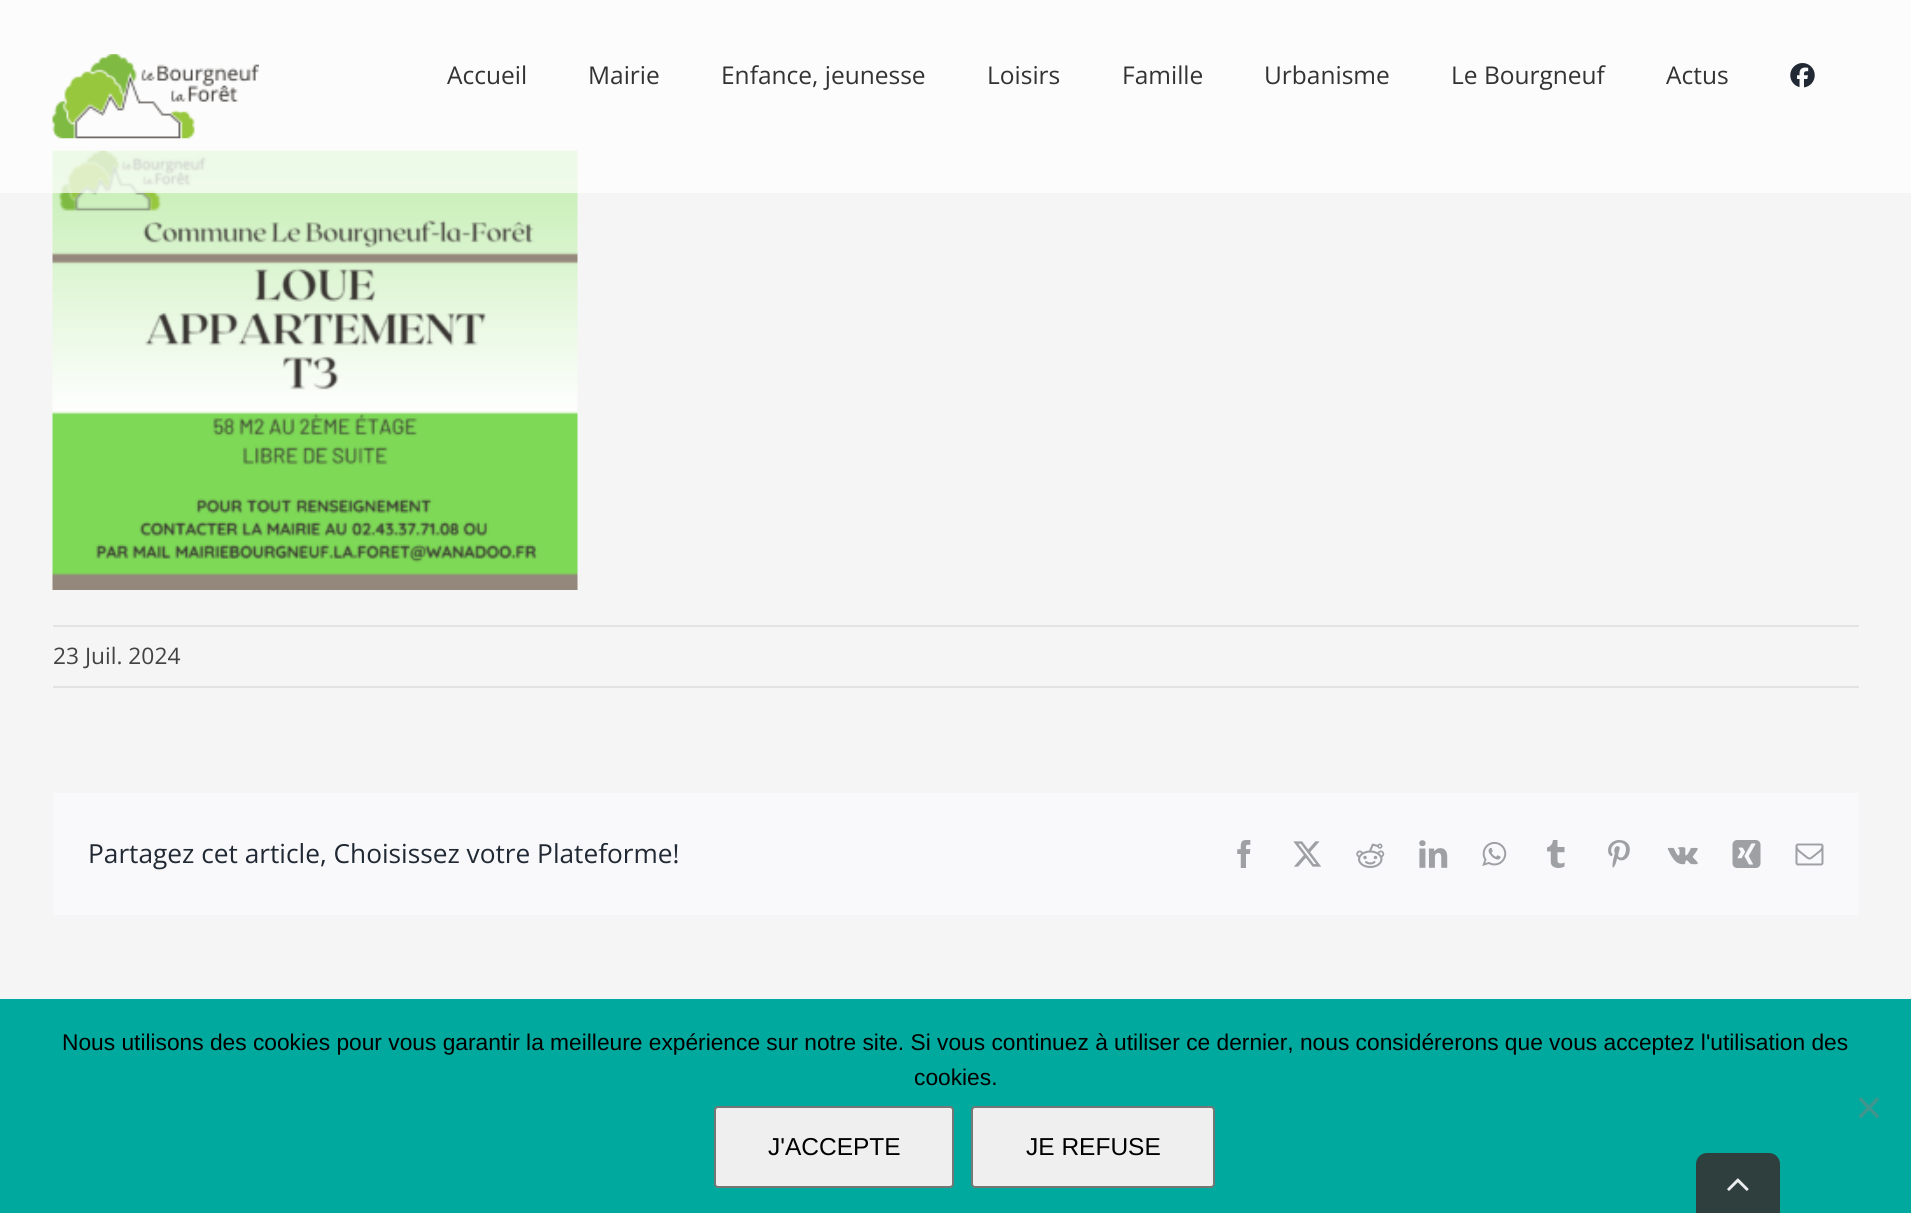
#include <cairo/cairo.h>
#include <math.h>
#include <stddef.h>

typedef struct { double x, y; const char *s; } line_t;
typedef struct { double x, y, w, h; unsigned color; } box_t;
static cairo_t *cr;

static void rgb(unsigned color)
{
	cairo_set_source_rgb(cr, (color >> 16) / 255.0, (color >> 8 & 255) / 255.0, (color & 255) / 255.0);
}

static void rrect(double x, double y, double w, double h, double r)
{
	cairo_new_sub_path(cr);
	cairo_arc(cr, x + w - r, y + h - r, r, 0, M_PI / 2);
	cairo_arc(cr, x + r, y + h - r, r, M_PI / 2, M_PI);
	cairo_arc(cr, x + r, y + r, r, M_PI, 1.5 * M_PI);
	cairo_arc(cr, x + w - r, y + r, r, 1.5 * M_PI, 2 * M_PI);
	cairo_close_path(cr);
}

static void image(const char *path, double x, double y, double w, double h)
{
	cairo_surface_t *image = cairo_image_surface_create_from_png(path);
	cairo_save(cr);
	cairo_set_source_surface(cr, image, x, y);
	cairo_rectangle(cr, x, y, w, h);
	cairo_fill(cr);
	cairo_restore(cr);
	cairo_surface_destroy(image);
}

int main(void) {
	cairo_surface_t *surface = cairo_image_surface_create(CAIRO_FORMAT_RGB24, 1911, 1213);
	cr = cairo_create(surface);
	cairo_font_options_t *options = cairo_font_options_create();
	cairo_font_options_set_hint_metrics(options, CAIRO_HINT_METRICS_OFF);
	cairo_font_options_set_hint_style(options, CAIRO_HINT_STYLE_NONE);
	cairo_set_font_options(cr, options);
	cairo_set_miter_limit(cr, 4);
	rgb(0xf5f5f5);
	cairo_paint(cr);
	image("img/3.png", 52, 150, 526, 440);
	cairo_set_source_rgba(cr, 1, 1, 1, 0.7);
	cairo_rectangle(cr, 0, 0, 1911, 193);
	cairo_fill(cr);
	image("img/1.png", 52, 54, 207, 85);
	image("img/2.png", 1790, 63, 25, 25);
	{
		static const box_t items[] = {
			{53, 625, 1806, 2, 0xe2e2e2},
			{53, 686, 1806, 2, 0xe2e2e2},
			{53, 793, 1806, 122, 0xf9f9fb},
		};
		for (size_t i = 0; i < sizeof items / sizeof *items; i++) {
			rgb(items[i].color);
			cairo_rectangle(cr, items[i].x, items[i].y, items[i].w, items[i].h);
			cairo_fill(cr);
		}
	}
	image("img/4.png", 1237, 840, 14, 28);
	image("img/5.png", 1293, 841, 28, 26);
	image("img/6.png", 1356, 843, 29, 25);
	image("img/7.png", 1419, 840, 29, 28);
	image("img/8.png", 1482, 841, 25, 25);
	image("img/9.png", 1547, 840, 18, 28);
	image("img/10.png", 1608, 840, 22, 28);
	image("img/11.png", 1667, 847, 31, 18);
	image("img/12.png", 1732, 840, 29, 28);
	image("img/13.png", 1795, 843, 29, 23);
	rgb(0x00a99d);
	cairo_rectangle(cr, 0, 999, 1911, 214);
	cairo_fill(cr);
	rgb(0x40958f);
	cairo_new_path(cr);
	cairo_move_to(cr, 1877, 1097);
	cairo_line_to(cr, 1879.5, 1099.5);
	cairo_line_to(cr, 1861, 1118.5);
	cairo_line_to(cr, 1858.5, 1116);
	cairo_close_path(cr);
	cairo_fill(cr);
	cairo_new_path(cr);
	cairo_move_to(cr, 1858.5, 1099.5);
	cairo_line_to(cr, 1861, 1097);
	cairo_line_to(cr, 1879.5, 1116);
	cairo_line_to(cr, 1877, 1118.5);
	cairo_close_path(cr);
	cairo_fill(cr);
	rgb(0xefefef);
	rrect(715, 1107, 238, 80, 3);
	cairo_fill_preserve(cr);
	rgb(0x767676);
	cairo_stroke(cr);
	rgb(0xefefef);
	rrect(972, 1107, 242, 80, 3);
	cairo_fill_preserve(cr);
	rgb(0x767676);
	cairo_stroke(cr);
	rgb(0x2e3f3e);
	cairo_new_path(cr);
	cairo_move_to(cr, 1707, 1153);
	cairo_line_to(cr, 1769, 1153);
	cairo_curve_to(cr, 1775, 1153, 1780, 1158, 1780, 1164);
	cairo_line_to(cr, 1780, 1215);
	cairo_line_to(cr, 1696, 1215);
	cairo_line_to(cr, 1696, 1164);
	cairo_curve_to(cr, 1696, 1158, 1701, 1153, 1707, 1153);
	cairo_close_path(cr);
	cairo_fill(cr);
	image("img/14.png", 1727, 1178, 22, 13);
	cairo_select_font_face(cr, "Open Sans", CAIRO_FONT_SLANT_NORMAL, CAIRO_FONT_WEIGHT_NORMAL);
	cairo_set_font_size(cr, 24.5);
	rgb(0x333333);
	{
		static const line_t items[] = {
			{447, 84, "Accueil"},
			{588, 84, "Mairie"},
			{721, 84, "Enfance, jeunesse"},
			{987, 84, "Loisirs"},
			{1122, 84, "Famille"},
			{1264, 84, "Urbanisme"},
			{1451, 84, "Le Bourgneuf"},
			{1666, 84, "Actus"},
		};
		for (size_t i = 0; i < sizeof items / sizeof *items; i++) {
			cairo_move_to(cr, items[i].x, items[i].y);
			cairo_show_text(cr, items[i].s);
		}
	}
	cairo_set_font_size(cr, 22.75);
	rgb(0x434343);
	cairo_move_to(cr, 53, 664);
	cairo_show_text(cr, "23 Juil. 2024");
	cairo_set_font_size(cr, 26.25);
	rgb(0x212934);
	cairo_move_to(cr, 88, 863);
	cairo_show_text(cr, "Partagez cet article, Choisissez votre Plateforme!");
	cairo_select_font_face(cr, "Liberation Sans", CAIRO_FONT_SLANT_NORMAL, CAIRO_FONT_WEIGHT_NORMAL);
	cairo_set_font_size(cr, 22.75);
	rgb(0x000000);
	cairo_move_to(cr, 62, 1050);
	cairo_show_text(cr, "Nous utilisons des cookies pour vous garantir la meilleure expérience sur notre site. Si vous continuez à utiliser ce dernier, nous considérerons que vous acceptez l'utilisation des");
	cairo_move_to(cr, 914, 1085);
	cairo_show_text(cr, "cookies.");
	cairo_set_font_size(cr, 24.5);
	cairo_move_to(cr, 768, 1155);
	cairo_show_text(cr, "J'ACCEPTE");
	cairo_move_to(cr, 1026, 1155);
	cairo_show_text(cr, "JE REFUSE");
	cairo_surface_write_to_png(surface, "page.png");
	cairo_font_options_destroy(options);
	cairo_destroy(cr);
	cairo_surface_destroy(surface);
	return 0;
}
